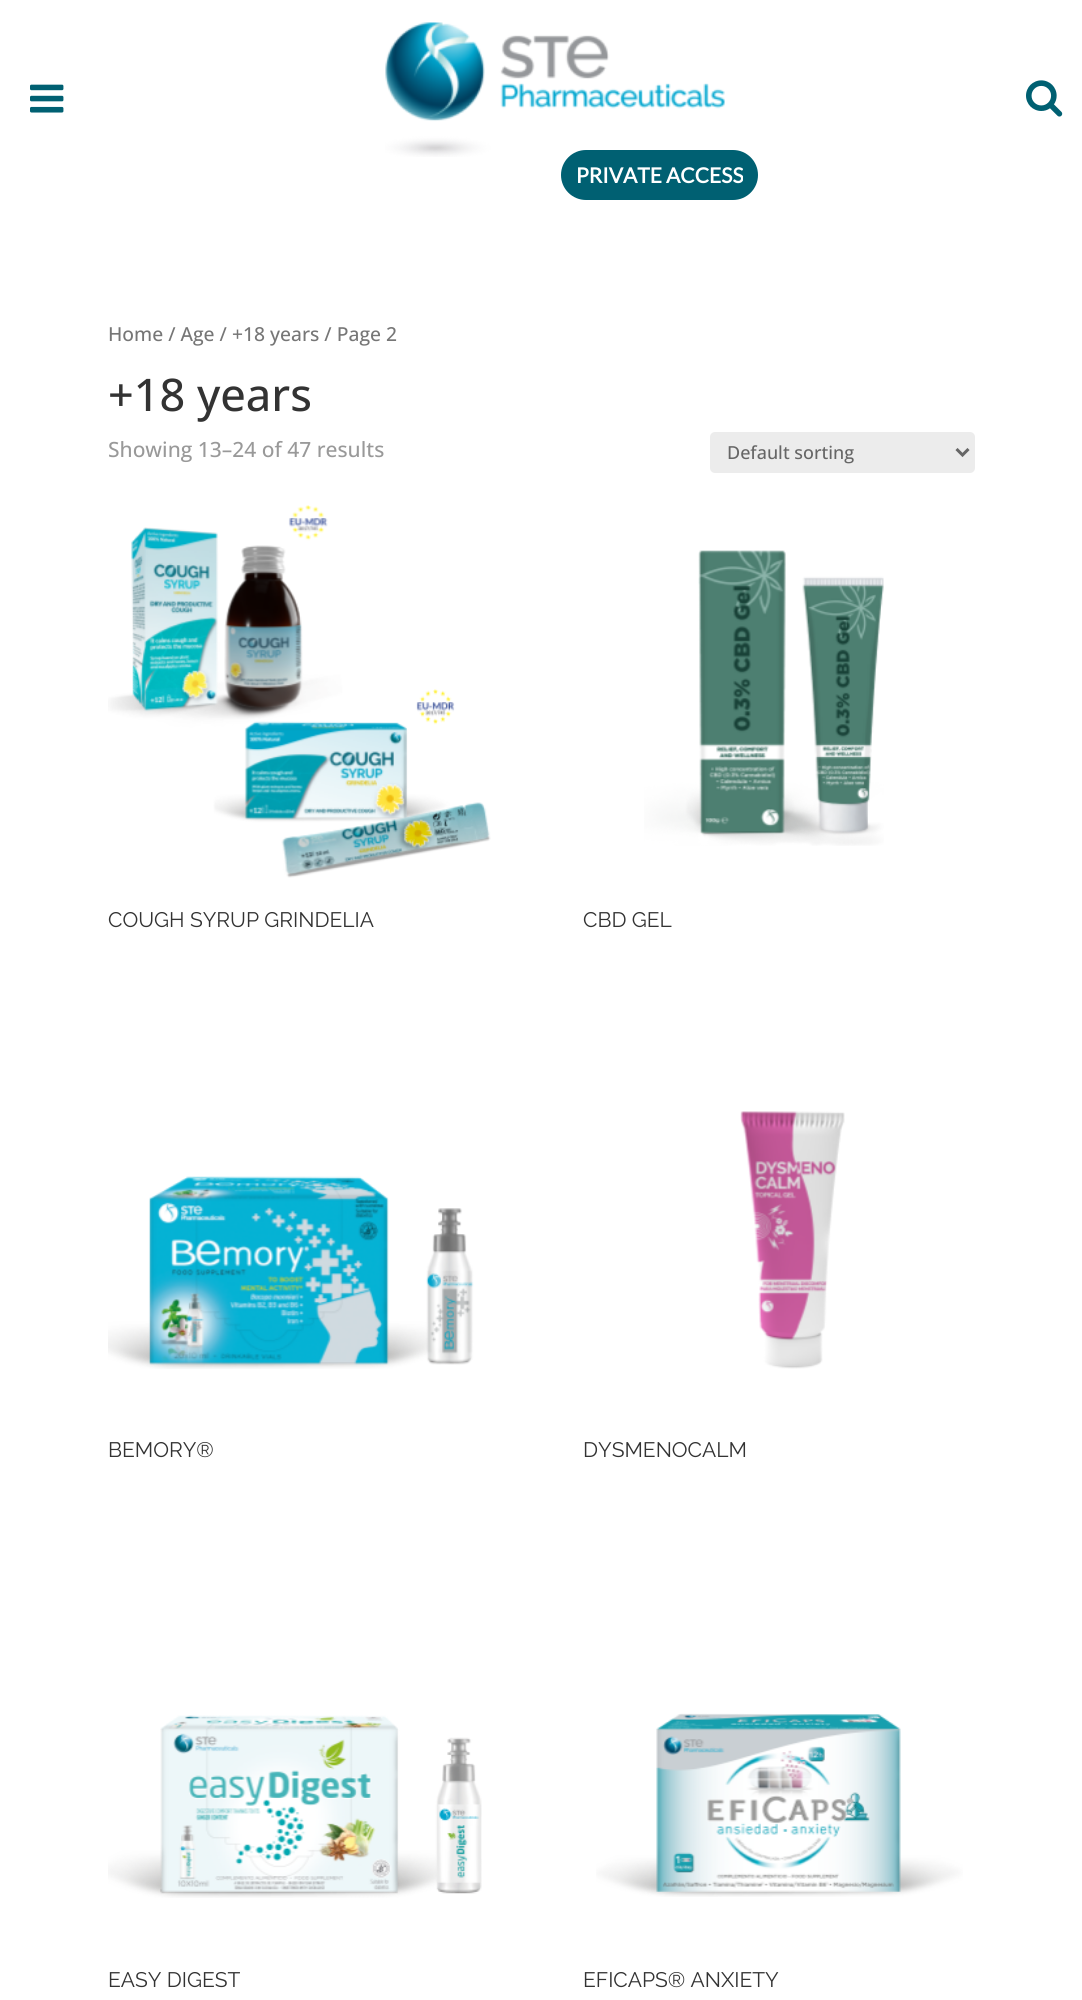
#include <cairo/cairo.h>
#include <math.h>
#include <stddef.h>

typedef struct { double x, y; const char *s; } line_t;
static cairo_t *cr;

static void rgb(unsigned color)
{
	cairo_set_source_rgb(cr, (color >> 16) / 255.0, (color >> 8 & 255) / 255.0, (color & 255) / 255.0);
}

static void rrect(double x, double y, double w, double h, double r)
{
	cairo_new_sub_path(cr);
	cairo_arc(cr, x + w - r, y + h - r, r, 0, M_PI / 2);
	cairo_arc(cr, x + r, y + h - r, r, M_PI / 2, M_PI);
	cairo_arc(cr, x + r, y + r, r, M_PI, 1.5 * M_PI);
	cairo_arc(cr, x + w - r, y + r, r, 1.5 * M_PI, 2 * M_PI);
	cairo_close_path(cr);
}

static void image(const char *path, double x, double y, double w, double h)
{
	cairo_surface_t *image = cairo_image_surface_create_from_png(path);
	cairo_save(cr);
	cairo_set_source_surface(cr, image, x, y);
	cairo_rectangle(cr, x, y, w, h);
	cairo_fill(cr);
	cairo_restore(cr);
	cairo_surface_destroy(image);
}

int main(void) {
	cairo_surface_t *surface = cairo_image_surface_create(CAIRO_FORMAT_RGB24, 1082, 2000);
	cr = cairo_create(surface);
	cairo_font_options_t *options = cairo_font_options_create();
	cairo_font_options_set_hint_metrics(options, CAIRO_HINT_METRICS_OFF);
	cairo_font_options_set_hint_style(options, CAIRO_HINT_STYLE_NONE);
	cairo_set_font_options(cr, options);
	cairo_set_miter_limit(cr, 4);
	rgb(0xffffff);
	cairo_paint(cr);
	image("img/1.png", 30, 84, 34, 29);
	image("img/2.png", 1026, 80, 37, 37);
	image("img/3.png", 385, 22, 340, 135);
	rgb(0x006072);
	rrect(561, 150, 197, 50, 25);
	cairo_fill(cr);
	rgb(0xececec);
	rrect(710, 432, 265, 41, 5);
	cairo_fill(cr);
	cairo_new_path(cr);
	cairo_move_to(cr, 956.5, 449);
	cairo_line_to(cr, 962.5, 455);
	cairo_line_to(cr, 968.5, 449);
	rgb(0x666666);
	cairo_set_line_width(cr, 3);
	cairo_stroke(cr);
	image("img/4.png", 108, 505, 383, 373);
	image("img/5.png", 644, 550, 240, 296);
	image("img/6.png", 108, 1176, 366, 193);
	image("img/7.png", 740, 1111, 105, 258);
	image("img/8.png", 108, 1715, 374, 183);
	image("img/9.png", 596, 1713, 367, 184);
	cairo_select_font_face(cr, "Lato", CAIRO_FONT_SLANT_NORMAL, CAIRO_FONT_WEIGHT_BOLD);
	cairo_set_font_size(cr, 21);
	rgb(0xffffff);
	cairo_move_to(cr, 576, 183);
	cairo_show_text(cr, "PRIVATE ACCESS");
	cairo_select_font_face(cr, "Open Sans Medium", CAIRO_FONT_SLANT_NORMAL, CAIRO_FONT_WEIGHT_NORMAL);
	cairo_set_font_size(cr, 19.3);
	rgb(0x767676);
	cairo_move_to(cr, 108, 341);
	cairo_show_text(cr, "Home / Age / +18 years / Page 2");
	cairo_set_font_size(cr, 45);
	rgb(0x333333);
	cairo_move_to(cr, 108, 411);
	cairo_show_text(cr, "+18 years");
	cairo_set_font_size(cr, 21);
	rgb(0x999999);
	cairo_move_to(cr, 108, 457);
	cairo_show_text(cr, "Showing 13–24 of 47 results");
	cairo_set_font_size(cr, 18);
	rgb(0x666666);
	cairo_move_to(cr, 727, 459);
	cairo_show_text(cr, "Default sorting");
	cairo_select_font_face(cr, "Raleway Thin", CAIRO_FONT_SLANT_NORMAL, CAIRO_FONT_WEIGHT_NORMAL);
	cairo_set_font_size(cr, 21);
	rgb(0x333333);
	{
		static const line_t items[] = {
			{108, 927, "COUGH SYRUP GRINDELIA"},
			{583, 927, "CBD GEL"},
			{108, 1457, "BEMORY®"},
			{583, 1457, "DYSMENOCALM"},
			{108, 1987, "EASY DIGEST"},
			{583, 1987, "EFICAPS® ANXIETY"},
		};
		for (size_t i = 0; i < sizeof items / sizeof *items; i++) {
			cairo_move_to(cr, items[i].x, items[i].y);
			cairo_show_text(cr, items[i].s);
		}
	}
	cairo_surface_write_to_png(surface, "page.png");
	cairo_font_options_destroy(options);
	cairo_destroy(cr);
	cairo_surface_destroy(surface);
	return 0;
}
